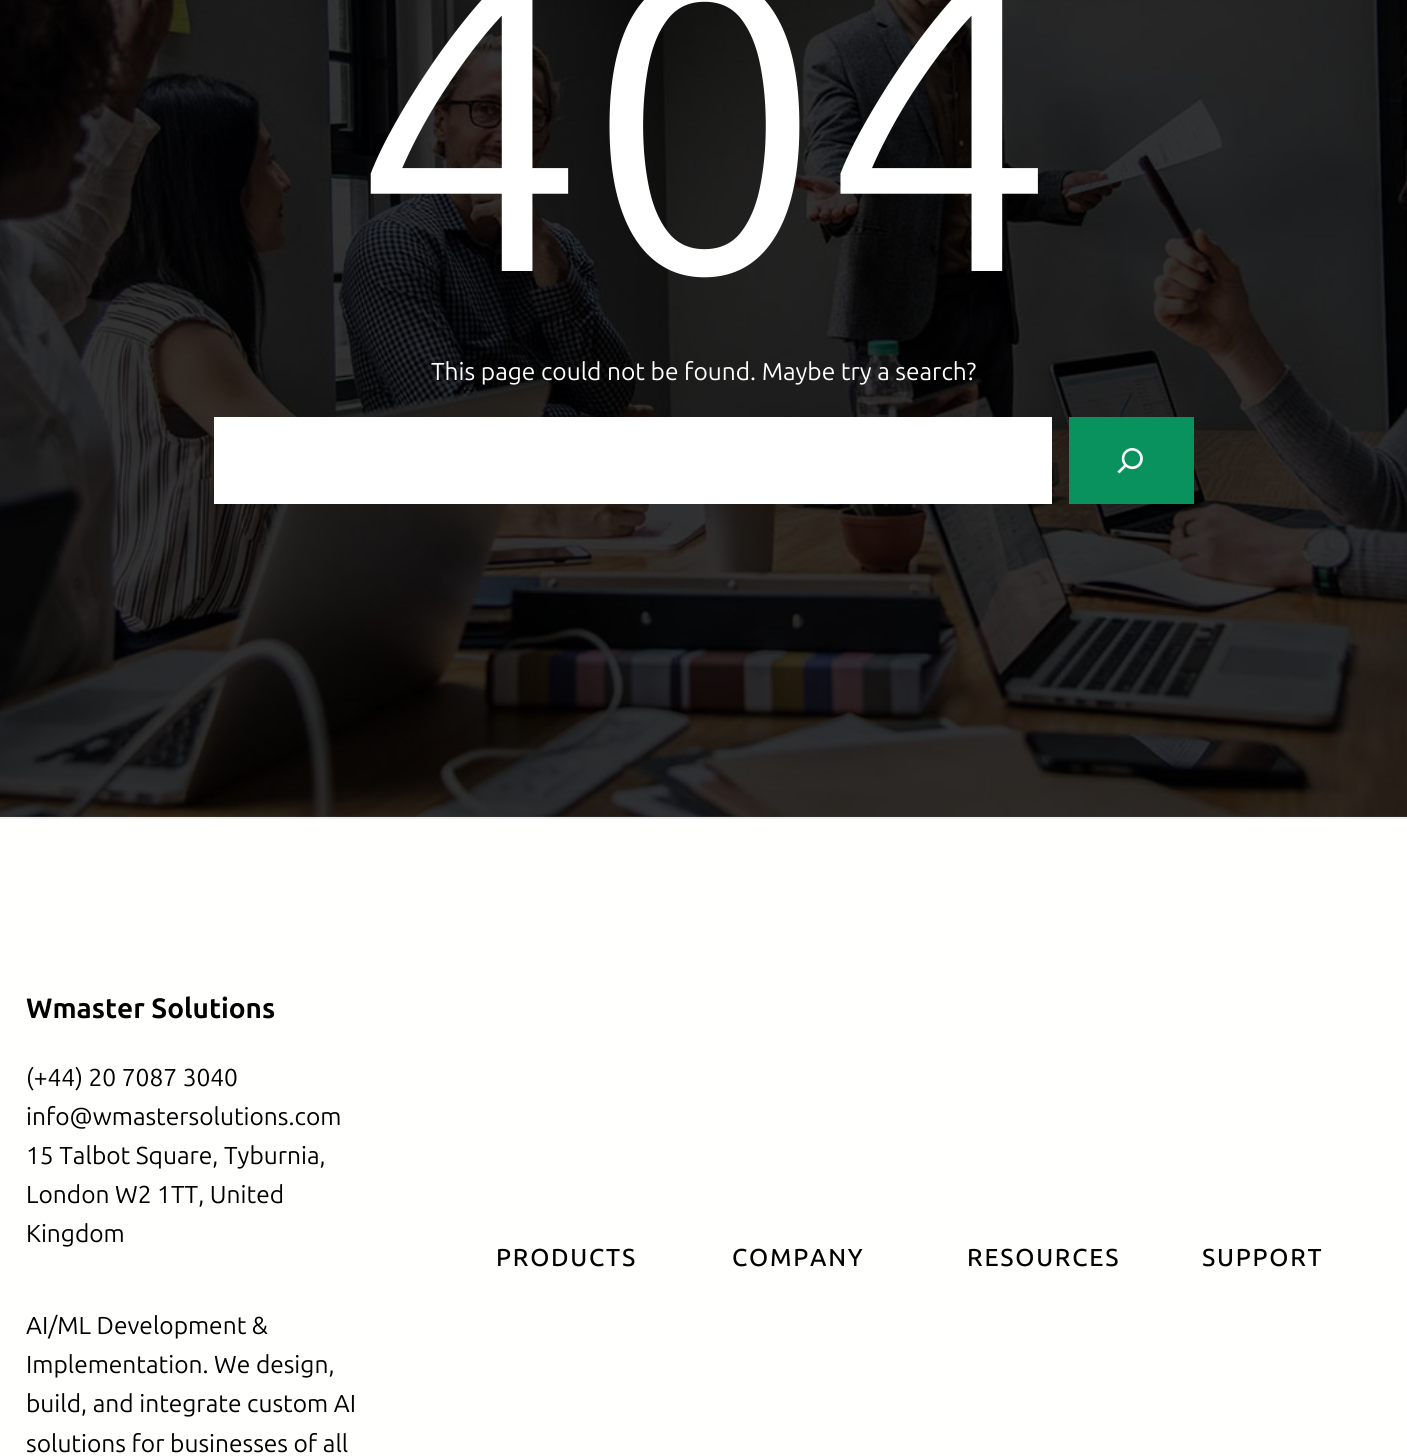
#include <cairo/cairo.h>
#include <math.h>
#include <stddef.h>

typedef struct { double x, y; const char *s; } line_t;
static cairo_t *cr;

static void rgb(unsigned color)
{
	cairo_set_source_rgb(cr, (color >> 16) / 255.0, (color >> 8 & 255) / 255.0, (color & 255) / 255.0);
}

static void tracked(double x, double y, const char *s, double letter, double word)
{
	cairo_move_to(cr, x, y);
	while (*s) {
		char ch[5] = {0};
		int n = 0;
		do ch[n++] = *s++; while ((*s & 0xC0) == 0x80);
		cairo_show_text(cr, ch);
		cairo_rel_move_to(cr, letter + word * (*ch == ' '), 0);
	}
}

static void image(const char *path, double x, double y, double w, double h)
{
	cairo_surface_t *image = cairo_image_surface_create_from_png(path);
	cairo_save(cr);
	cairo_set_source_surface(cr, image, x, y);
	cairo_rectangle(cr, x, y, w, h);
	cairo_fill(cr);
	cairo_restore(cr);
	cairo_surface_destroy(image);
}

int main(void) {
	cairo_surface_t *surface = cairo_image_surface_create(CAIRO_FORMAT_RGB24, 1407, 1456);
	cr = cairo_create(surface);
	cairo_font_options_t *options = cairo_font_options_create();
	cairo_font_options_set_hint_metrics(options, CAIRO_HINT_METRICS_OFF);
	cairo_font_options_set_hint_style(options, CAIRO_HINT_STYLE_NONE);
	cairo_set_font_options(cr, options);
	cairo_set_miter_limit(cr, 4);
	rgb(0xfffffd);
	cairo_paint(cr);
	rgb(0x333333);
	cairo_rectangle(cr, 0, 816, 1407, 1);
	cairo_fill(cr);
	image("img/1.png", 0, 0, 1407, 817);
	rgb(0xffffff);
	cairo_rectangle(cr, 214, 417, 838, 87);
	cairo_fill(cr);
	rgb(0x09925d);
	cairo_rectangle(cr, 1069, 417, 125, 87);
	cairo_fill(cr);
	image("img/2.png", 1117, 448, 26, 26);
	rgb(0xf1f1f1);
	cairo_rectangle(cr, 0, 817, 1407, 2);
	cairo_fill(cr);
	cairo_select_font_face(cr, "Ubuntu", CAIRO_FONT_SLANT_NORMAL, CAIRO_FONT_WEIGHT_NORMAL);
	cairo_set_font_size(cr, 420);
	rgb(0xffffff);
	tracked(351, 271, "404", -2, 0);
	cairo_set_font_size(cr, 24.5);
	cairo_move_to(cr, 431, 380);
	cairo_show_text(cr, "This page could not be found. Maybe try a search?");
	cairo_select_font_face(cr, "Ubuntu", CAIRO_FONT_SLANT_NORMAL, CAIRO_FONT_WEIGHT_BOLD);
	cairo_set_font_size(cr, 28);
	rgb(0x000000);
	cairo_move_to(cr, 26, 1018);
	cairo_show_text(cr, "Wmaster Solutions");
	cairo_select_font_face(cr, "Ubuntu", CAIRO_FONT_SLANT_NORMAL, CAIRO_FONT_WEIGHT_NORMAL);
	cairo_set_font_size(cr, 24.5);
	{
		static const line_t items[] = {
			{26, 1086, "(+44) 20 7087 3040"},
			{26, 1125, "info@wmastersolutions.com"},
			{26, 1164, "15 Talbot Square, Tyburnia,"},
			{26, 1203, "London W2 1TT, United"},
			{26, 1242, "Kingdom"},
			{26, 1334, "AI/ML Development &"},
			{26, 1373, "Implementation. We design,"},
			{26, 1412, "build, and integrate custom AI"},
			{26, 1452, "solutions for businesses of all"},
		};
		for (size_t i = 0; i < sizeof items / sizeof *items; i++) {
			cairo_move_to(cr, items[i].x, items[i].y);
			cairo_show_text(cr, items[i].s);
		}
	}
	cairo_select_font_face(cr, "Ubuntu Medium", CAIRO_FONT_SLANT_NORMAL, CAIRO_FONT_WEIGHT_NORMAL);
	{
		static const line_t items[] = {
			{496, 1266, "PRODUCTS"},
			{732, 1266, "COMPANY"},
			{967, 1266, "RESOURCES"},
			{1202, 1266, "SUPPORT"},
		};
		for (size_t i = 0; i < sizeof items / sizeof *items; i++) {
			tracked(items[i].x, items[i].y, items[i].s, 1.75, 0);
		}
	}
	cairo_surface_write_to_png(surface, "page.png");
	cairo_font_options_destroy(options);
	cairo_destroy(cr);
	cairo_surface_destroy(surface);
	return 0;
}
